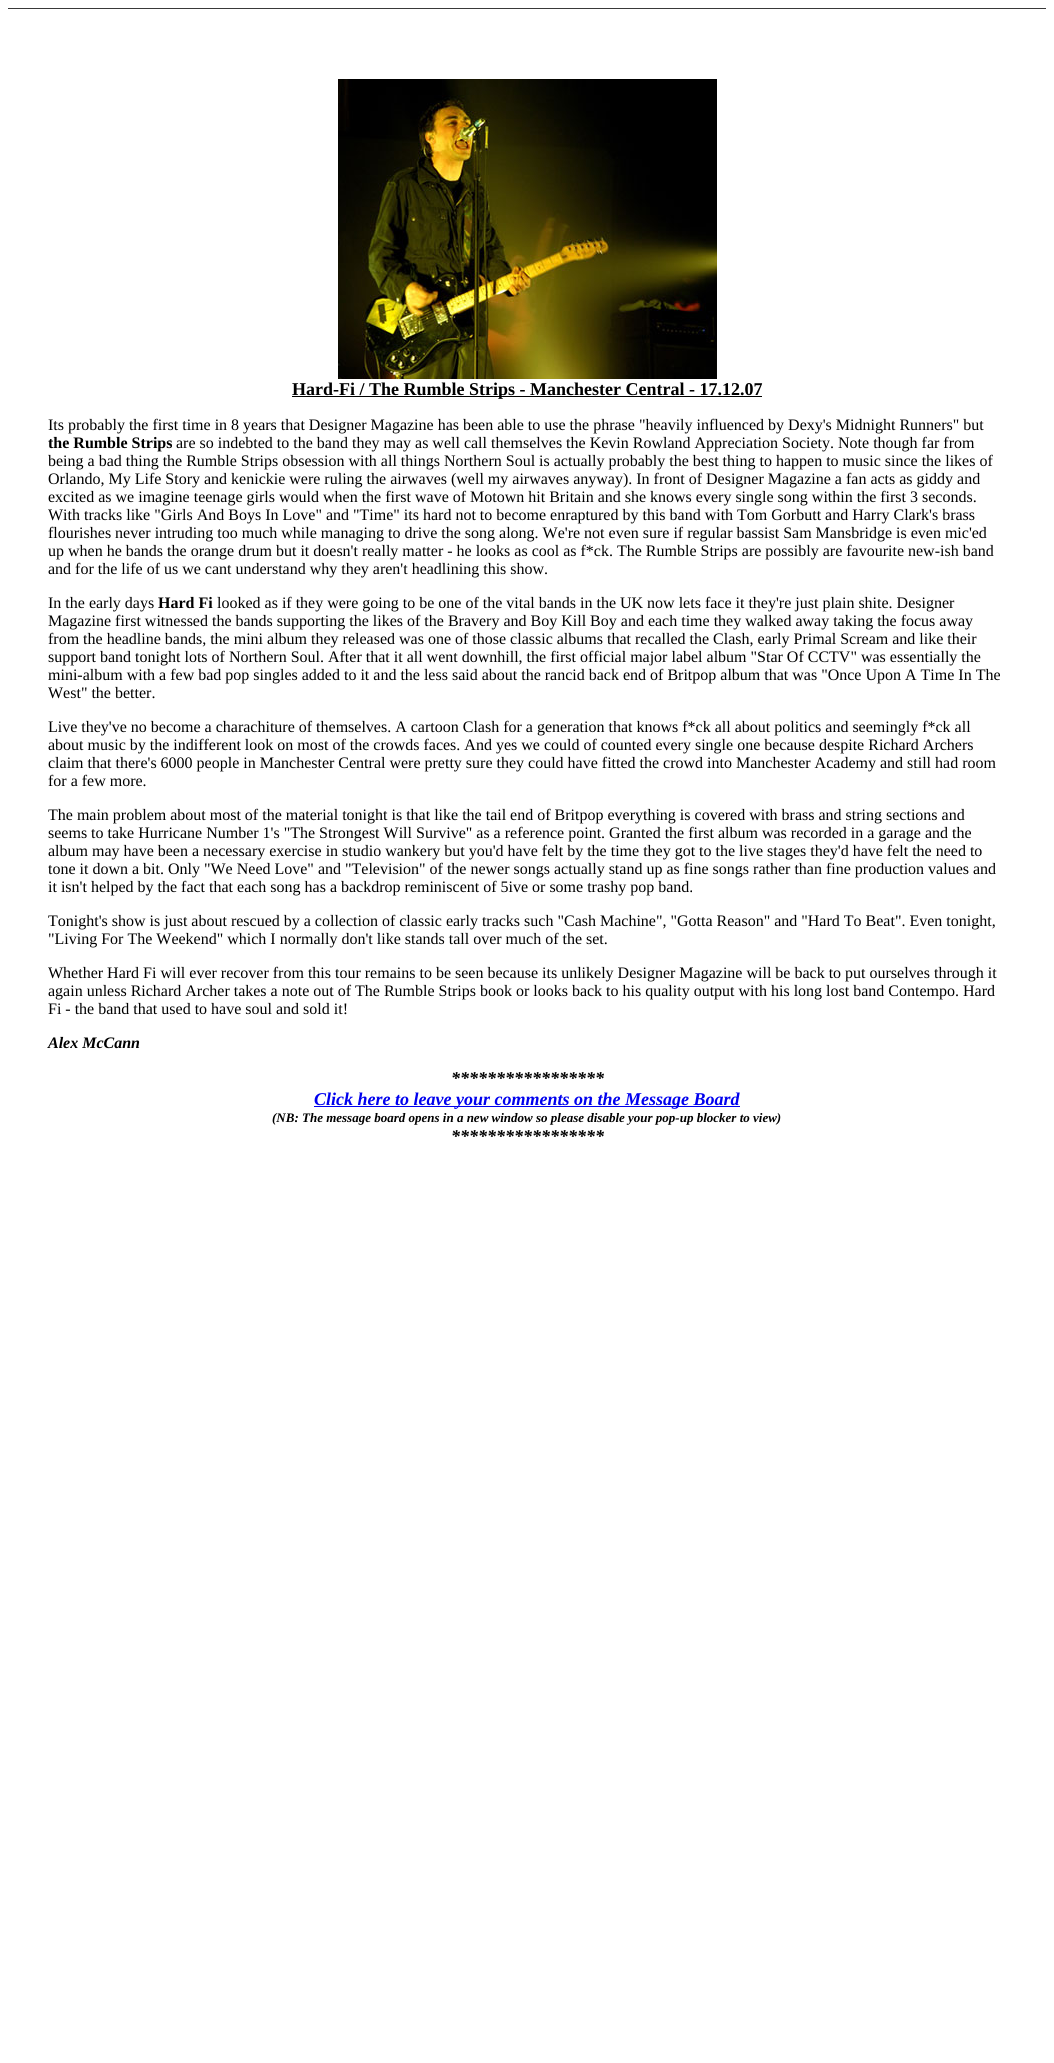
#include <cairo/cairo.h>
#include <math.h>
#include <stddef.h>

typedef struct { double x, y; const char *s; } line_t;
static cairo_t *cr;

static void rgb(unsigned color)
{
	cairo_set_source_rgb(cr, (color >> 16) / 255.0, (color >> 8 & 255) / 255.0, (color & 255) / 255.0);
}

static void image(const char *path, double x, double y, double w, double h)
{
	cairo_surface_t *image = cairo_image_surface_create_from_png(path);
	cairo_save(cr);
	cairo_set_source_surface(cr, image, x, y);
	cairo_rectangle(cr, x, y, w, h);
	cairo_fill(cr);
	cairo_restore(cr);
	cairo_surface_destroy(image);
}

int main(void) {
	cairo_surface_t *surface = cairo_image_surface_create(CAIRO_FORMAT_RGB24, 1054, 2063);
	cr = cairo_create(surface);
	cairo_font_options_t *options = cairo_font_options_create();
	cairo_font_options_set_hint_metrics(options, CAIRO_HINT_METRICS_OFF);
	cairo_font_options_set_hint_style(options, CAIRO_HINT_STYLE_NONE);
	cairo_set_font_options(cr, options);
	cairo_set_miter_limit(cr, 4);
	rgb(0xffffff);
	cairo_paint(cr);
	rgb(0x393939);
	cairo_rectangle(cr, 8, 8, 1038, 1);
	cairo_fill(cr);
	image("img/1.png", 338, 79, 379, 300);
	rgb(0x000000);
	cairo_rectangle(cr, 292, 396, 470, 1);
	cairo_fill(cr);
	rgb(0x0000ee);
	cairo_rectangle(cr, 314, 1106, 426, 1);
	cairo_fill(cr);
	cairo_select_font_face(cr, "Liberation Serif", CAIRO_FONT_SLANT_NORMAL, CAIRO_FONT_WEIGHT_BOLD);
	cairo_set_font_size(cr, 18);
	rgb(0x000000);
	cairo_move_to(cr, 292, 395);
	cairo_show_text(cr, "Hard-Fi / The Rumble Strips - Manchester Central - 17.12.07");
	cairo_select_font_face(cr, "Liberation Serif", CAIRO_FONT_SLANT_NORMAL, CAIRO_FONT_WEIGHT_NORMAL);
	cairo_set_font_size(cr, 16);
	cairo_move_to(cr, 48, 430);
	cairo_show_text(cr, "Its probably the first time in 8 years that Designer Magazine has been able to use the phrase \"heavily influenced by Dexy's Midnight Runners\" but");
	cairo_select_font_face(cr, "Liberation Serif", CAIRO_FONT_SLANT_NORMAL, CAIRO_FONT_WEIGHT_BOLD);
	cairo_move_to(cr, 48, 448);
	cairo_show_text(cr, "the Rumble Strips");
	cairo_select_font_face(cr, "Liberation Serif", CAIRO_FONT_SLANT_NORMAL, CAIRO_FONT_WEIGHT_NORMAL);
	{
		static const line_t items[] = {
			{176, 448, "are so indebted to the band they may as well call themselves the Kevin Rowland Appreciation Society. Note though far from"},
			{48, 466, "being a bad thing the Rumble Strips obsession with all things Northern Soul is actually probably the best thing to happen to music since the likes of"},
			{48, 484, "Orlando, My Life Story and kenickie were ruling the airwaves (well my airwaves anyway). In front of Designer Magazine a fan acts as giddy and"},
			{48, 502, "excited as we imagine teenage girls would when the first wave of Motown hit Britain and she knows every single song within the first 3 seconds."},
			{48, 520, "With tracks like \"Girls And Boys In Love\" and \"Time\" its hard not to become enraptured by this band with Tom Gorbutt and Harry Clark's brass"},
			{48, 538, "flourishes never intruding too much while managing to drive the song along. We're not even sure if regular bassist Sam Mansbridge is even mic'ed"},
			{48, 556, "up when he bands the orange drum but it doesn't really matter - he looks as cool as f*ck. The Rumble Strips are possibly are favourite new-ish band"},
			{48, 574, "and for the life of us we cant understand why they aren't headlining this show."},
			{48, 608, "In the early days"},
		};
		for (size_t i = 0; i < sizeof items / sizeof *items; i++) {
			cairo_move_to(cr, items[i].x, items[i].y);
			cairo_show_text(cr, items[i].s);
		}
	}
	cairo_select_font_face(cr, "Liberation Serif", CAIRO_FONT_SLANT_NORMAL, CAIRO_FONT_WEIGHT_BOLD);
	cairo_move_to(cr, 158, 608);
	cairo_show_text(cr, "Hard Fi");
	cairo_select_font_face(cr, "Liberation Serif", CAIRO_FONT_SLANT_NORMAL, CAIRO_FONT_WEIGHT_NORMAL);
	{
		static const line_t items[] = {
			{217, 608, "looked as if they were going to be one of the vital bands in the UK now lets face it they're just plain shite. Designer"},
			{48, 626, "Magazine first witnessed the bands supporting the likes of the Bravery and Boy Kill Boy and each time they walked away taking the focus away"},
			{48, 644, "from the headline bands, the mini album they released was one of those classic albums that recalled the Clash, early Primal Scream and like their"},
			{48, 662, "support band tonight lots of Northern Soul. After that it all went downhill, the first official major label album \"Star Of CCTV\" was essentially the"},
			{48, 680, "mini-album with a few bad pop singles added to it and the less said about the rancid back end of Britpop album that was \"Once Upon A Time In The"},
			{48, 698, "West\" the better."},
			{48, 732, "Live they've no become a charachiture of themselves. A cartoon Clash for a generation that knows f*ck all about politics and seemingly f*ck all"},
			{48, 750, "about music by the indifferent look on most of the crowds faces. And yes we could of counted every single one because despite Richard Archers"},
			{48, 768, "claim that there's 6000 people in Manchester Central were pretty sure they could have fitted the crowd into Manchester Academy and still had room"},
			{48, 786, "for a few more."},
			{48, 820, "The main problem about most of the material tonight is that like the tail end of Britpop everything is covered with brass and string sections and"},
			{48, 838, "seems to take Hurricane Number 1's \"The Strongest Will Survive\" as a reference point. Granted the first album was recorded in a garage and the"},
			{48, 856, "album may have been a necessary exercise in studio wankery but you'd have felt by the time they got to the live stages they'd have felt the need to"},
			{48, 874, "tone it down a bit. Only \"We Need Love\" and \"Television\" of the newer songs actually stand up as fine songs rather than fine production values and"},
			{48, 892, "it isn't helped by the fact that each song has a backdrop reminiscent of 5ive or some trashy pop band."},
			{48, 926, "Tonight's show is just about rescued by a collection of classic early tracks such \"Cash Machine\", \"Gotta Reason\" and \"Hard To Beat\". Even tonight,"},
			{48, 944, "\"Living For The Weekend\" which I normally don't like stands tall over much of the set."},
			{48, 978, "Whether Hard Fi will ever recover from this tour remains to be seen because its unlikely Designer Magazine will be back to put ourselves through it"},
			{48, 996, "again unless Richard Archer takes a note out of The Rumble Strips book or looks back to his quality output with his long lost band Contempo. Hard"},
			{48, 1014, "Fi - the band that used to have soul and sold it!"},
		};
		for (size_t i = 0; i < sizeof items / sizeof *items; i++) {
			cairo_move_to(cr, items[i].x, items[i].y);
			cairo_show_text(cr, items[i].s);
		}
	}
	cairo_select_font_face(cr, "Liberation Serif", CAIRO_FONT_SLANT_ITALIC, CAIRO_FONT_WEIGHT_BOLD);
	cairo_move_to(cr, 48, 1048);
	cairo_show_text(cr, "Alex McCann");
	cairo_set_font_size(cr, 18);
	cairo_move_to(cr, 451, 1084);
	cairo_show_text(cr, "*****************");
	rgb(0x0000ee);
	cairo_move_to(cr, 314, 1105);
	cairo_show_text(cr, "Click here to leave your comments on the Message Board");
	cairo_set_font_size(cr, 13);
	rgb(0x000000);
	cairo_move_to(cr, 272, 1122);
	cairo_show_text(cr, "(NB: The message board opens in a new window so please disable your pop-up blocker to view)");
	cairo_set_font_size(cr, 18);
	cairo_move_to(cr, 451, 1142);
	cairo_show_text(cr, "*****************");
	cairo_surface_write_to_png(surface, "page.png");
	cairo_font_options_destroy(options);
	cairo_destroy(cr);
	cairo_surface_destroy(surface);
	return 0;
}
